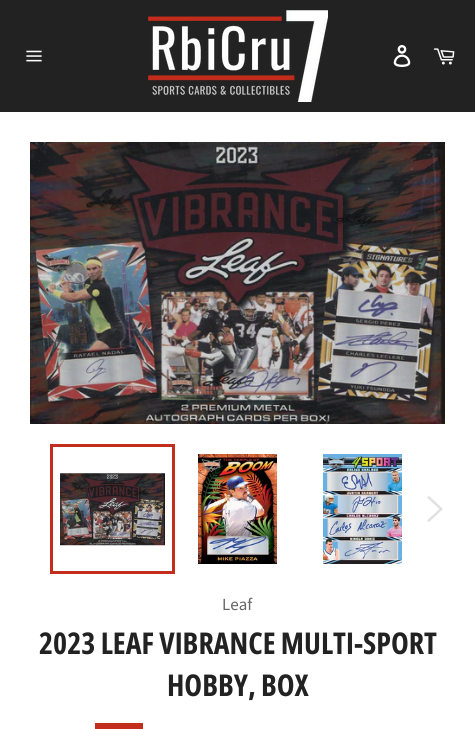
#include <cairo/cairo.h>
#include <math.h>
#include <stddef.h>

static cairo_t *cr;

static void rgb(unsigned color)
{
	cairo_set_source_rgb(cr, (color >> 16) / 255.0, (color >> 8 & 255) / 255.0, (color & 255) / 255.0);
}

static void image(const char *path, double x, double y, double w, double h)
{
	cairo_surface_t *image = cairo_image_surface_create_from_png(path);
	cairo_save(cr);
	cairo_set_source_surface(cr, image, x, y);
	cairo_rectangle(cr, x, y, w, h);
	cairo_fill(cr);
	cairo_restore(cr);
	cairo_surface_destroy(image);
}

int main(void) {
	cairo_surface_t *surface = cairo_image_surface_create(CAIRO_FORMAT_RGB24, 475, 729);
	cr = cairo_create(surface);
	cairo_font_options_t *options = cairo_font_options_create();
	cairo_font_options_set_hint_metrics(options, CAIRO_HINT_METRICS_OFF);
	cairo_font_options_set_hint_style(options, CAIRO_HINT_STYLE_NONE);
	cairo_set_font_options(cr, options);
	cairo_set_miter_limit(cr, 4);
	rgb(0x222222);
	cairo_paint(cr);
	image("img/1.png", 26, 50, 16, 12);
	image("img/2.png", 148, 10, 180, 92);
	image("img/3.png", 393, 45, 18, 22);
	image("img/4.png", 433, 48, 22, 17);
	rgb(0xffffff);
	cairo_rectangle(cr, 0, 112, 475, 617);
	cairo_fill(cr);
	image("img/5.png", 30, 142, 415, 282);
	image("img/6.png", 60, 473, 105, 73);
	cairo_rectangle(cr, 51.5, 445.5, 122, 127);
	rgb(0xc32d1c);
	cairo_set_line_width(cr, 3);
	cairo_stroke(cr);
	image("img/7.png", 198, 454, 79, 110);
	image("img/8.png", 323, 454, 79, 110);
	rgb(0xe0e0e0);
	cairo_new_path(cr);
	cairo_move_to(cr, 427, 497.5);
	cairo_line_to(cr, 429, 496);
	cairo_line_to(cr, 443, 509);
	cairo_line_to(cr, 429, 522);
	cairo_line_to(cr, 427, 520.5);
	cairo_line_to(cr, 439.5, 509);
	cairo_close_path(cr);
	cairo_fill(cr);
	rgb(0xc32d1c);
	cairo_rectangle(cr, 95, 723, 48, 6);
	cairo_fill(cr);
	cairo_select_font_face(cr, "Source Sans Pro", CAIRO_FONT_SLANT_NORMAL, CAIRO_FONT_WEIGHT_NORMAL);
	cairo_set_font_size(cr, 17);
	rgb(0x666666);
	cairo_move_to(cr, 222, 610);
	cairo_show_text(cr, "Leaf");
	cairo_select_font_face(cr, "Open Sans Condensed", CAIRO_FONT_SLANT_NORMAL, CAIRO_FONT_WEIGHT_BOLD);
	cairo_set_font_size(cr, 30);
	rgb(0x222222);
	cairo_move_to(cr, 39, 654);
	cairo_show_text(cr, "2023 LEAF VIBRANCE MULTI-SPORT");
	cairo_move_to(cr, 167, 696);
	cairo_show_text(cr, "HOBBY, BOX");
	cairo_surface_write_to_png(surface, "page.png");
	cairo_font_options_destroy(options);
	cairo_destroy(cr);
	cairo_surface_destroy(surface);
	return 0;
}
